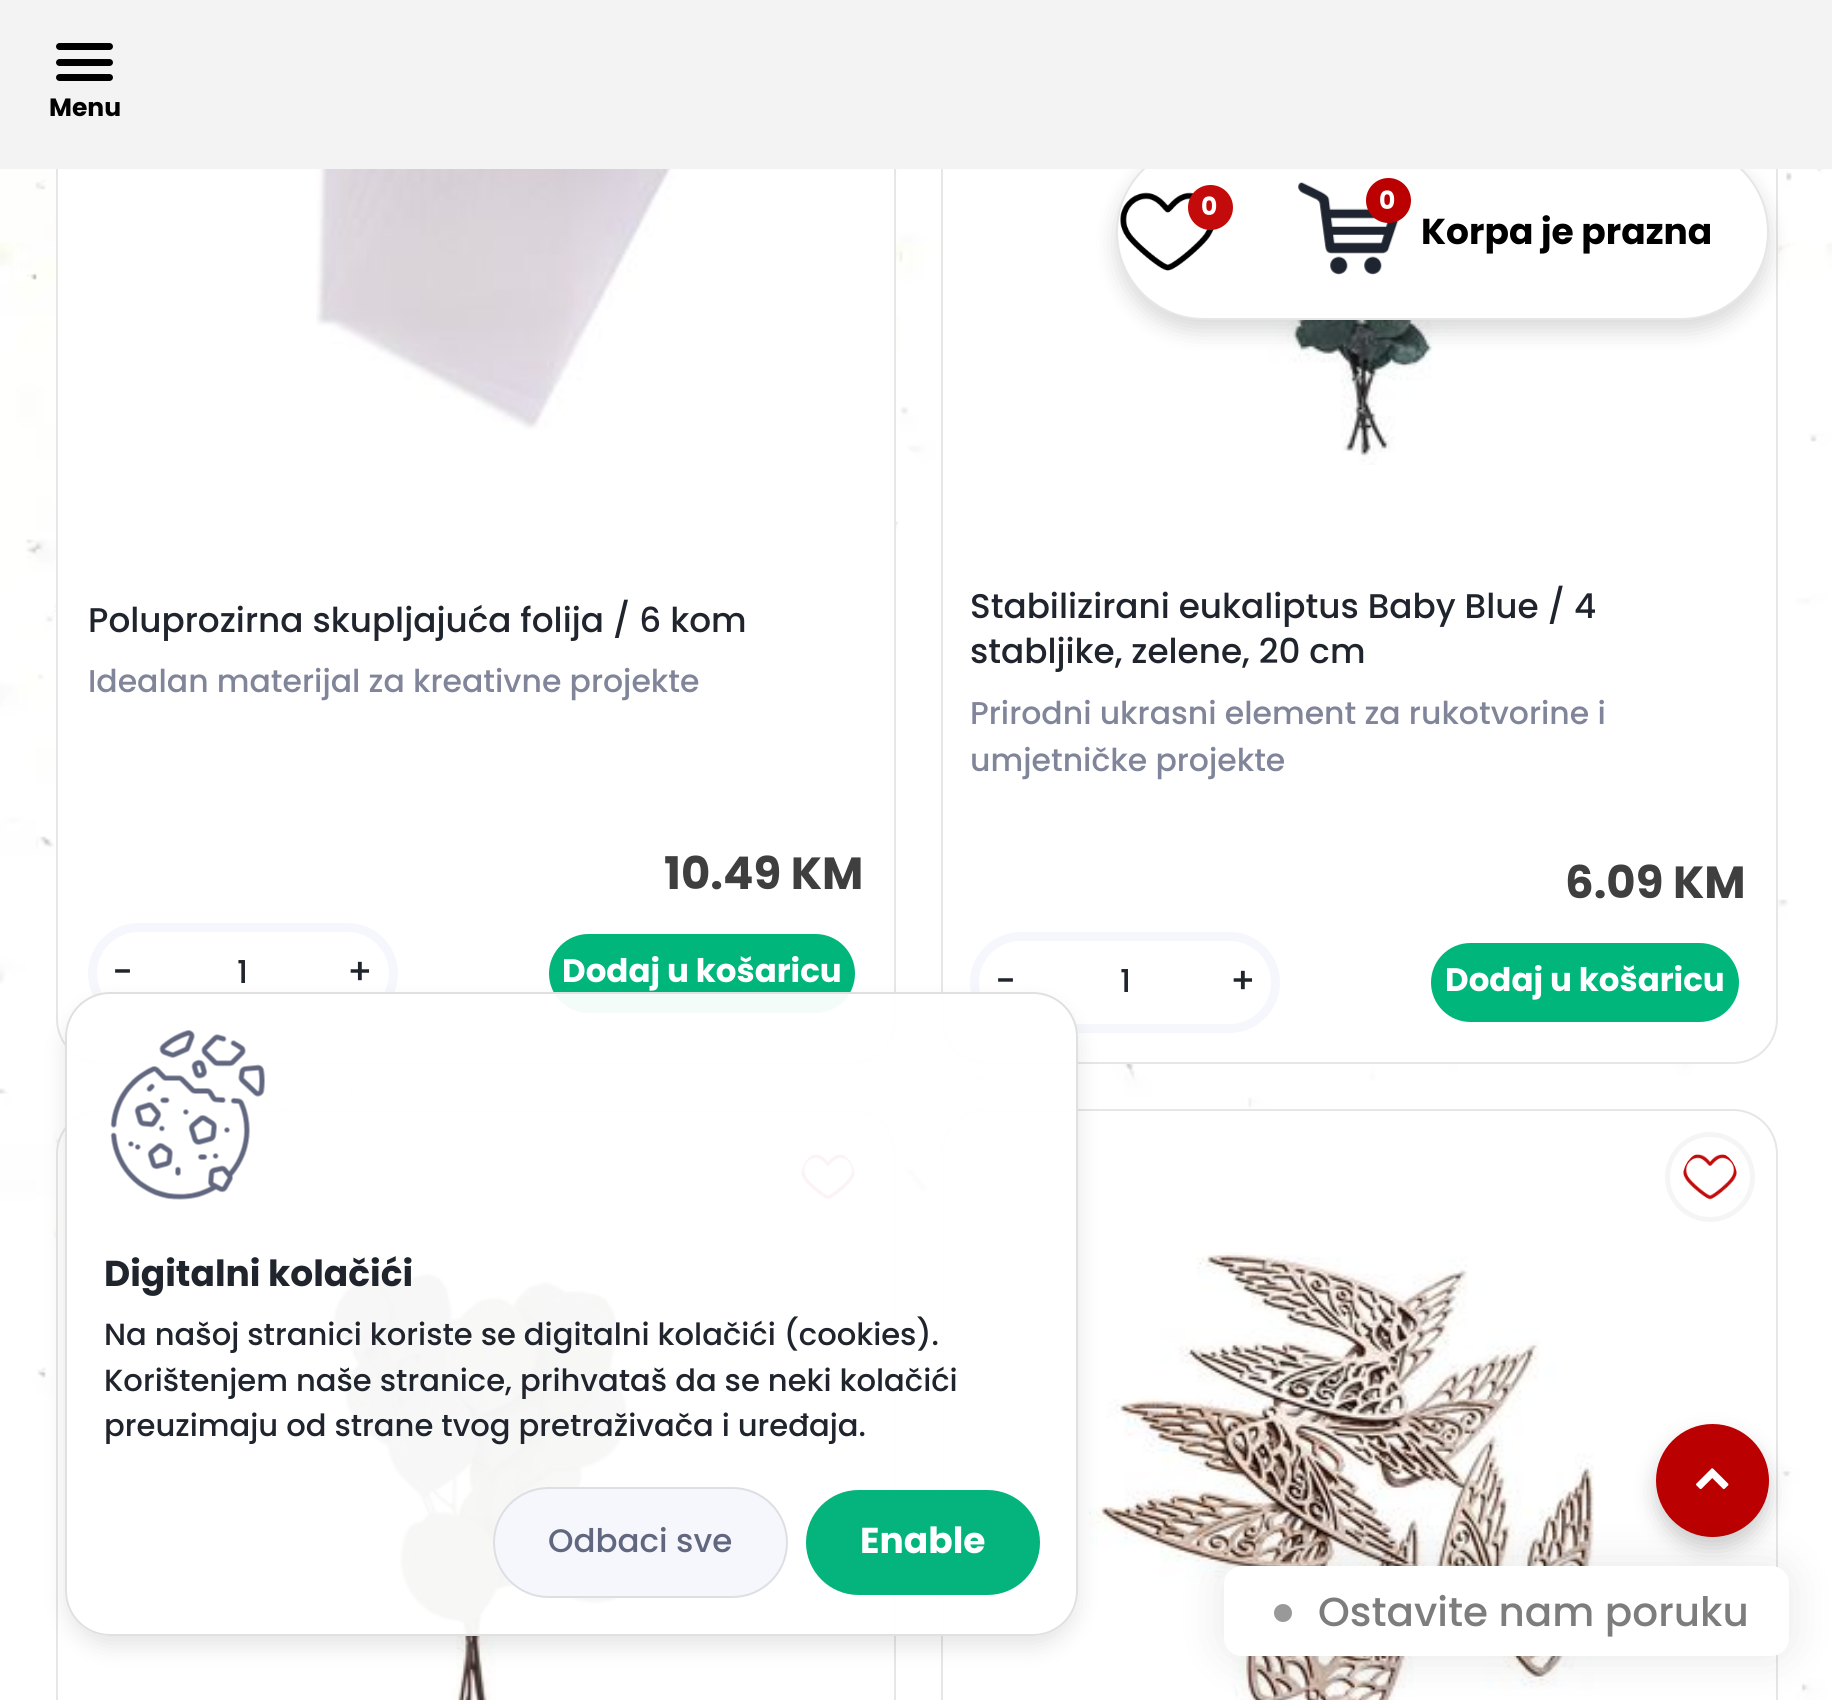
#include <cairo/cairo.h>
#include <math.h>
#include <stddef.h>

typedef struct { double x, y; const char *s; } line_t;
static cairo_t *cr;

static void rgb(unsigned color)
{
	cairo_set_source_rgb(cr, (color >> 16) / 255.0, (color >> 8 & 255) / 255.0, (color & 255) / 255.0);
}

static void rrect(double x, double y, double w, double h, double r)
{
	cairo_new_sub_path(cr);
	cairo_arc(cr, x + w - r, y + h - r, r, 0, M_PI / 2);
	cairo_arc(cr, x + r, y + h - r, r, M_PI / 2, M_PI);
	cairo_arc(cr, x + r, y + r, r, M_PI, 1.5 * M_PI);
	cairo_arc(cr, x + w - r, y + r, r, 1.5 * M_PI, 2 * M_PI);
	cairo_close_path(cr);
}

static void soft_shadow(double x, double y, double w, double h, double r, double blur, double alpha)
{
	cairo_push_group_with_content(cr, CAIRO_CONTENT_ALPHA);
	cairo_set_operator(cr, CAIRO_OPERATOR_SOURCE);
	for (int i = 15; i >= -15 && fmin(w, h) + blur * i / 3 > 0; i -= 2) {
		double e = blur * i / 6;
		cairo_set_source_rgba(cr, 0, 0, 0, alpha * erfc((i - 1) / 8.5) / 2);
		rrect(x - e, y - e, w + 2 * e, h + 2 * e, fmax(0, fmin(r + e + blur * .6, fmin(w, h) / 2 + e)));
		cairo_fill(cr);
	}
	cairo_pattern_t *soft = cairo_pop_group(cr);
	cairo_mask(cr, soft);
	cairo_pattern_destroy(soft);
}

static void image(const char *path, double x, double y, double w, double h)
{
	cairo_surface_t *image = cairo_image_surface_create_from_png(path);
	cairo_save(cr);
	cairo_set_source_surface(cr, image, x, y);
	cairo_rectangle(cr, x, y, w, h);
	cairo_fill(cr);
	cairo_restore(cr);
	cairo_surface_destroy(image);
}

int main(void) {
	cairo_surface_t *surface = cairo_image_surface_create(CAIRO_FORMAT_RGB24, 1832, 1700);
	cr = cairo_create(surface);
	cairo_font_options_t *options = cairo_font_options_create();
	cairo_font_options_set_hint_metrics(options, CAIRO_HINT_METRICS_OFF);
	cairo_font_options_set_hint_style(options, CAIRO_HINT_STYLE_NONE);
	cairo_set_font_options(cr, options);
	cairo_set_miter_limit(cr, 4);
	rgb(0xffffff);
	cairo_paint(cr);
	image("img/1.png", 0, 169, 1832, 1531);
	rgb(0xffffff);
	rrect(942, -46, 835, 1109, 44);
	cairo_fill_preserve(cr);
	rgb(0xe6e6e6);
	cairo_stroke(cr);
	image("img/5.png", 1215, 320, 270, 145);
	rgb(0x000000);
	soft_shadow(1116, 155, 653, 176, 88, 11, 0.15);
	rgb(0xffffff);
	rrect(1116, 144, 653, 176, 88);
	cairo_fill(cr);
	rrect(1117, 145, 651, 174, 87);
	cairo_set_source_rgba(cr, 0, 0, 0, 0.1);
	cairo_stroke(cr);
	rgb(0xffffff);
	rrect(57, -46, 838, 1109, 44);
	cairo_fill_preserve(cr);
	rgb(0xe6e6e6);
	cairo_stroke(cr);
	rgb(0xf3f3f3);
	cairo_rectangle(cr, 0, 0, 1832, 169);
	cairo_fill(cr);
	rgb(0x000000);
	rrect(56, 43, 57, 7, 3.5);
	cairo_fill(cr);
	rrect(56, 59, 57, 7, 3.5);
	cairo_fill(cr);
	rrect(56, 74, 57, 7, 3.5);
	cairo_fill(cr);
	image("img/2.png", 1120, 192, 94, 79);
	rgb(0xc40b0b);
	cairo_arc(cr, 1210.5, 207.5, 22.5, 0, 2 * M_PI);
	cairo_fill(cr);
	image("img/3.png", 1298, 182, 101, 93);
	rgb(0xba0000);
	cairo_arc(cr, 1388.5, 200.5, 22.5, 0, 2 * M_PI);
	cairo_fill(cr);
	image("img/4.png", 316, 169, 392, 261);
	rrect(92.5, 927.5, 301, 92, 46);
	rgb(0xf6f7fc);
	cairo_set_line_width(cr, 9);
	cairo_stroke(cr);
	rgb(0x00b67a);
	rrect(549, 934, 306, 79, 39.5);
	cairo_fill(cr);
	rrect(974.5, 936.5, 301, 92, 46);
	rgb(0xf6f7fc);
	cairo_stroke(cr);
	rgb(0x00b67a);
	rrect(1431, 943, 308, 79, 39.5);
	cairo_fill(cr);
	rgb(0xffffff);
	rrect(56, 1109, 840, 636, 45);
	cairo_fill(cr);
	rrect(57, 1110, 838, 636, 44);
	cairo_set_source_rgba(cr, 0, 0, 0, 0.1);
	cairo_set_line_width(cr, 2);
	cairo_stroke(cr);
	cairo_arc(cr, 828, 1177, 42.5, 0, 2 * M_PI);
	rgb(0xf5f5f5);
	cairo_set_line_width(cr, 5);
	cairo_stroke(cr);
	image("img/6.png", 801, 1154, 54, 46);
	image("img/7.png", 330, 1273, 325, 427);
	rgb(0xffffff);
	rrect(942, 1110, 835, 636, 44);
	cairo_fill_preserve(cr);
	rgb(0xe6e6e6);
	cairo_set_line_width(cr, 2);
	cairo_stroke(cr);
	cairo_arc(cr, 1710, 1177, 42.5, 0, 2 * M_PI);
	rgb(0xf5f5f5);
	cairo_set_line_width(cr, 5);
	cairo_stroke(cr);
	image("img/8.png", 1683, 1154, 54, 46);
	image("img/9.png", 1089, 1252, 505, 448);
	rgb(0x000000);
	soft_shadow(1656, 1436, 113, 112, 56, 11, 0.2);
	rgb(0xba0000);
	cairo_arc(cr, 1712.5, 1480.5, 56.5, 0, 2 * M_PI);
	cairo_fill(cr);
	rgb(0x000000);
	soft_shadow(1224, 1566, 565, 90, 18, 22.5, 0.1);
	rgb(0xffffff);
	rrect(1224, 1566, 565, 90, 18);
	cairo_fill(cr);
	rgb(0x999999);
	cairo_arc(cr, 1283, 1613, 13.5, 0, 2 * M_PI);
	cairo_fill_preserve(cr);
	rgb(0xffffff);
	cairo_set_line_width(cr, 9);
	cairo_stroke(cr);
	cairo_save(cr);
	cairo_set_fill_rule(cr, CAIRO_FILL_RULE_EVEN_ODD);
	cairo_new_path(cr);
	cairo_move_to(cr, 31, 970);
	cairo_line_to(cr, 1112, 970);
	cairo_line_to(cr, 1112, 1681);
	cairo_line_to(cr, 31, 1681);
	cairo_close_path(cr);
	cairo_move_to(cr, 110, 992);
	cairo_line_to(cr, 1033, 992);
	cairo_curve_to(cr, 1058, 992, 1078, 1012, 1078, 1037);
	cairo_line_to(cr, 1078, 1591);
	cairo_curve_to(cr, 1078, 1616, 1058, 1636, 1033, 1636);
	cairo_line_to(cr, 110, 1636);
	cairo_curve_to(cr, 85, 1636, 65, 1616, 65, 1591);
	cairo_line_to(cr, 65, 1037);
	cairo_curve_to(cr, 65, 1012, 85, 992, 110, 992);
	cairo_close_path(cr);
	cairo_clip(cr);
	rgb(0x000000);
	soft_shadow(65, 1004, 1013, 643, 45, 11, 0.1);
	cairo_restore(cr);
	cairo_set_source_rgba(cr, 1, 1, 1, 0.95);
	rrect(66, 993, 1011, 642, 44);
	cairo_fill_preserve(cr);
	rgb(0xe0e0e0);
	cairo_set_line_width(cr, 2);
	cairo_stroke(cr);
	image("img/10.png", 110, 1030, 155, 170);
	rgb(0xf6f7fc);
	rrect(493, 1487, 295, 111, 55.5);
	cairo_fill(cr);
	rrect(494, 1488, 293, 109, 54.5);
	cairo_set_source_rgba(cr, 0, 0, 0, 0.1);
	cairo_stroke(cr);
	rgb(0x05b47c);
	rrect(806, 1490, 234, 105, 52.5);
	cairo_fill(cr);
	image("img/11.png", 1696, 1468, 33, 22);
	cairo_select_font_face(cr, "Poppins", CAIRO_FONT_SLANT_NORMAL, CAIRO_FONT_WEIGHT_BOLD);
	cairo_set_font_size(cr, 25);
	rgb(0x000000);
	cairo_move_to(cr, 49, 116);
	cairo_show_text(cr, "Menu");
	rgb(0xffffff);
	cairo_move_to(cr, 1201, 215);
	cairo_show_text(cr, "0");
	cairo_move_to(cr, 1379, 209);
	cairo_show_text(cr, "0");
	cairo_set_font_size(cr, 36);
	rgb(0x000000);
	cairo_move_to(cr, 1421, 244);
	cairo_show_text(cr, "Korpa je prazna");
	cairo_select_font_face(cr, "Poppins Medium", CAIRO_FONT_SLANT_NORMAL, CAIRO_FONT_WEIGHT_NORMAL);
	cairo_set_font_size(cr, 34.25);
	rgb(0x1f242d);
	cairo_move_to(cr, 88, 632);
	cairo_show_text(cr, "Poluprozirna skupljajuća folija / 6 kom");
	cairo_set_font_size(cr, 31.5);
	rgb(0x818599);
	cairo_move_to(cr, 88, 692);
	cairo_show_text(cr, "Idealan materijal za kreativne projekte");
	cairo_select_font_face(cr, "Poppins", CAIRO_FONT_SLANT_NORMAL, CAIRO_FONT_WEIGHT_BOLD);
	cairo_set_font_size(cr, 45);
	rgb(0x3f3f3f);
	cairo_move_to(cr, 664, 889);
	cairo_show_text(cr, "10.49 KM");
	cairo_select_font_face(cr, "Poppins Medium", CAIRO_FONT_SLANT_NORMAL, CAIRO_FONT_WEIGHT_NORMAL);
	cairo_set_font_size(cr, 36);
	rgb(0x1f242d);
	cairo_move_to(cr, 112, 984);
	cairo_show_text(cr, "-");
	cairo_set_font_size(cr, 31.5);
	cairo_move_to(cr, 237, 983);
	cairo_show_text(cr, "1");
	cairo_set_font_size(cr, 36);
	cairo_move_to(cr, 347, 984);
	cairo_show_text(cr, "+");
	cairo_select_font_face(cr, "Poppins", CAIRO_FONT_SLANT_NORMAL, CAIRO_FONT_WEIGHT_BOLD);
	cairo_set_font_size(cr, 32.5);
	rgb(0xffffff);
	cairo_move_to(cr, 562, 982);
	cairo_show_text(cr, "Dodaj u košaricu");
	cairo_select_font_face(cr, "Poppins Medium", CAIRO_FONT_SLANT_NORMAL, CAIRO_FONT_WEIGHT_NORMAL);
	cairo_set_font_size(cr, 34.25);
	rgb(0x1f242d);
	cairo_move_to(cr, 970, 618);
	cairo_show_text(cr, "Stabilizirani eukaliptus Baby Blue / 4");
	cairo_move_to(cr, 970, 663);
	cairo_show_text(cr, "stabljike, zelene, 20 cm");
	cairo_set_font_size(cr, 31.5);
	rgb(0x818599);
	cairo_move_to(cr, 970, 724);
	cairo_show_text(cr, "Prirodni ukrasni element za rukotvorine i");
	cairo_move_to(cr, 970, 771);
	cairo_show_text(cr, "umjetničke projekte");
	cairo_select_font_face(cr, "Poppins", CAIRO_FONT_SLANT_NORMAL, CAIRO_FONT_WEIGHT_BOLD);
	cairo_set_font_size(cr, 45);
	rgb(0x3f3f3f);
	cairo_move_to(cr, 1565, 898);
	cairo_show_text(cr, "6.09 KM");
	cairo_select_font_face(cr, "Poppins Medium", CAIRO_FONT_SLANT_NORMAL, CAIRO_FONT_WEIGHT_NORMAL);
	cairo_set_font_size(cr, 36);
	rgb(0x1f242d);
	cairo_move_to(cr, 995, 993);
	cairo_show_text(cr, "-");
	cairo_set_font_size(cr, 31.5);
	cairo_move_to(cr, 1120, 992);
	cairo_show_text(cr, "1");
	cairo_set_font_size(cr, 36);
	cairo_move_to(cr, 1230, 993);
	cairo_show_text(cr, "+");
	cairo_select_font_face(cr, "Poppins", CAIRO_FONT_SLANT_NORMAL, CAIRO_FONT_WEIGHT_BOLD);
	cairo_set_font_size(cr, 32.5);
	rgb(0xffffff);
	cairo_move_to(cr, 1445, 991);
	cairo_show_text(cr, "Dodaj u košaricu");
	cairo_select_font_face(cr, "Poppins Medium", CAIRO_FONT_SLANT_NORMAL, CAIRO_FONT_WEIGHT_NORMAL);
	cairo_set_font_size(cr, 40.5);
	rgb(0x7d7d7d);
	cairo_move_to(cr, 1318, 1626);
	cairo_show_text(cr, "Ostavite nam poruku");
	cairo_select_font_face(cr, "Poppins", CAIRO_FONT_SLANT_NORMAL, CAIRO_FONT_WEIGHT_BOLD);
	cairo_set_font_size(cr, 36);
	rgb(0x1f242d);
	cairo_move_to(cr, 104, 1286);
	cairo_show_text(cr, "Digitalni kolačići");
	cairo_select_font_face(cr, "Poppins Medium", CAIRO_FONT_SLANT_NORMAL, CAIRO_FONT_WEIGHT_NORMAL);
	cairo_set_font_size(cr, 30.6);
	{
		static const line_t items[] = {
			{104, 1345, "Na našoj stranici koriste se digitalni kolačići (cookies)."},
			{104, 1391, "Korištenjem naše stranice, prihvataš da se neki kolačići"},
			{104, 1436, "preuzimaju od strane tvog pretraživača i uređaja."},
		};
		for (size_t i = 0; i < sizeof items / sizeof *items; i++) {
			cairo_move_to(cr, items[i].x, items[i].y);
			cairo_show_text(cr, items[i].s);
		}
	}
	cairo_set_font_size(cr, 32.5);
	rgb(0x626780);
	cairo_move_to(cr, 548, 1552);
	cairo_show_text(cr, "Odbaci sve");
	cairo_select_font_face(cr, "Poppins", CAIRO_FONT_SLANT_NORMAL, CAIRO_FONT_WEIGHT_BOLD);
	cairo_set_font_size(cr, 36);
	rgb(0xffffff);
	cairo_move_to(cr, 860, 1553);
	cairo_show_text(cr, "Enable");
	cairo_surface_write_to_png(surface, "page.png");
	cairo_font_options_destroy(options);
	cairo_destroy(cr);
	cairo_surface_destroy(surface);
	return 0;
}
